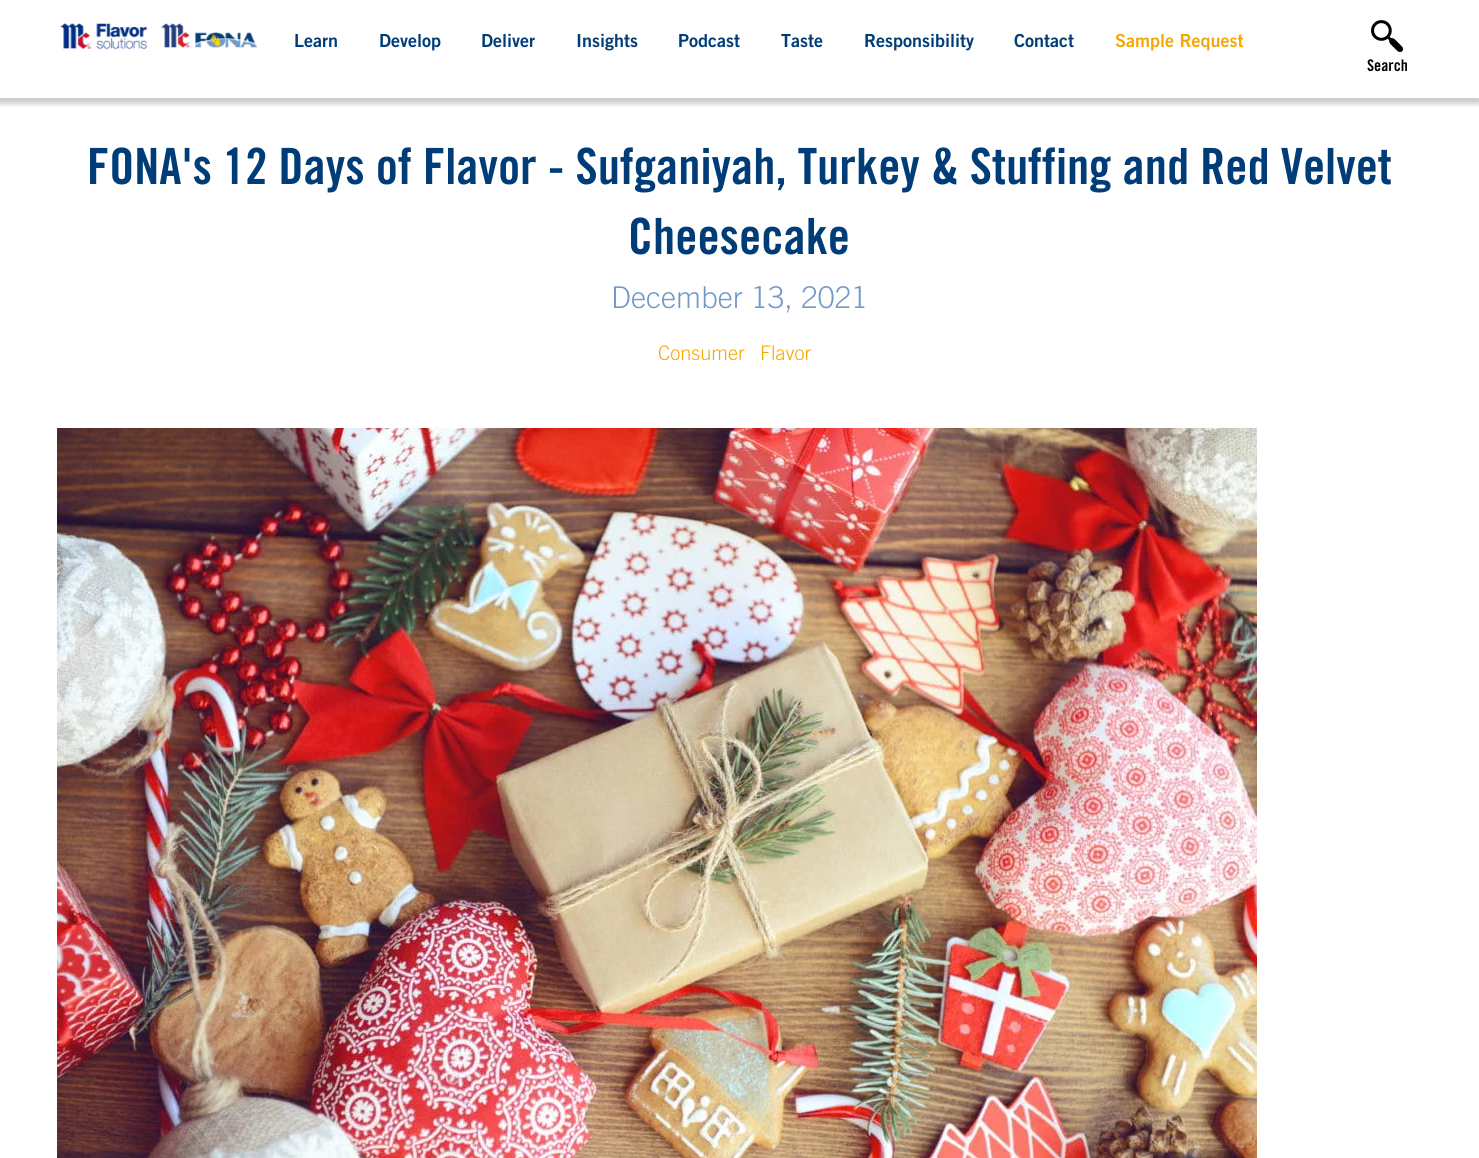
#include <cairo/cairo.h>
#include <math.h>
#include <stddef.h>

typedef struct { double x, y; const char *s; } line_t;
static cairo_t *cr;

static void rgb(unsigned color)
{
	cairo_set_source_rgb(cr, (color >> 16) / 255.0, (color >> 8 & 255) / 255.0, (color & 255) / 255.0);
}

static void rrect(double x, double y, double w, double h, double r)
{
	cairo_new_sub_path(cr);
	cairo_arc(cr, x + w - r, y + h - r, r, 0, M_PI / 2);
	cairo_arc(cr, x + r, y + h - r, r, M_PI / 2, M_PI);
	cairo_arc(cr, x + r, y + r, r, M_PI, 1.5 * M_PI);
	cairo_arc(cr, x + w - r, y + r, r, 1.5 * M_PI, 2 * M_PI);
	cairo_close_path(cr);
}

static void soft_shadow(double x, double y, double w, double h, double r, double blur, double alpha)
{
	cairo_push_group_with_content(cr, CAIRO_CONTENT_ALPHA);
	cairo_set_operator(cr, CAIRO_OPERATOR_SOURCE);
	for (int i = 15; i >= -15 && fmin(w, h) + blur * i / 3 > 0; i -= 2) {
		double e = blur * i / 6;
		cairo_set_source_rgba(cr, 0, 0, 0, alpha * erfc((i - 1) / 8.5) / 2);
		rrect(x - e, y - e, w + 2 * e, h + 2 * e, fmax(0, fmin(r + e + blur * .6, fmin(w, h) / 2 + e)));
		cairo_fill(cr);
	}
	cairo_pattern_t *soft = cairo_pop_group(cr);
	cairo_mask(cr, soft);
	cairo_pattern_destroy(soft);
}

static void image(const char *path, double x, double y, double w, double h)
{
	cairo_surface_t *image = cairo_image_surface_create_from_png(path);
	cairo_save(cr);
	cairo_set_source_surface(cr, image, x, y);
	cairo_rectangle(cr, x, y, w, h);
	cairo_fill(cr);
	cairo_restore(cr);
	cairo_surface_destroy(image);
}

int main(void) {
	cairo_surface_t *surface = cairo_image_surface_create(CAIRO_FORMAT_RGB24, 1479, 1158);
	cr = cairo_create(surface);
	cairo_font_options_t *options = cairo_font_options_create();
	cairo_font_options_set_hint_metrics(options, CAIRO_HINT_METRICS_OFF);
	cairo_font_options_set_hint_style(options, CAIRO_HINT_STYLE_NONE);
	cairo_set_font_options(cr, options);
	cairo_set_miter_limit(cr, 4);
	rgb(0xffffff);
	cairo_paint(cr);
	cairo_save(cr);
	cairo_rectangle(cr, 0, 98, 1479, 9);
	cairo_clip(cr);
	rgb(0x000000);
	soft_shadow(-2, 2, 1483, 102, 0, 2.5, 0.2);
	cairo_restore(cr);
	image("img/1.png", 60, 23, 198, 27);
	image("img/2.png", 1371, 20, 32, 32);
	image("img/3.png", 57, 428, 1200, 730);
	cairo_select_font_face(cr, "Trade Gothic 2", CAIRO_FONT_SLANT_NORMAL, CAIRO_FONT_WEIGHT_BOLD);
	cairo_set_font_size(cr, 18);
	rgb(0x003d78);
	{
		static const line_t items[] = {
			{294, 47, "Learn"},
			{379, 47, "Develop"},
			{481, 47, "Deliver"},
			{576, 47, "Insights"},
			{678, 47, "Podcast"},
			{781, 47, "Taste"},
			{864, 47, "Responsibility"},
			{1014, 47, "Contact"},
		};
		for (size_t i = 0; i < sizeof items / sizeof *items; i++) {
			cairo_move_to(cr, items[i].x, items[i].y);
			cairo_show_text(cr, items[i].s);
		}
	}
	rgb(0xf5a702);
	cairo_move_to(cr, 1115, 47);
	cairo_show_text(cr, "Sample Request");
	cairo_select_font_face(cr, "Trade Gothic", CAIRO_FONT_SLANT_NORMAL, CAIRO_FONT_WEIGHT_BOLD);
	cairo_set_font_size(cr, 16);
	rgb(0x000000);
	cairo_move_to(cr, 1367, 71);
	cairo_show_text(cr, "Search");
	cairo_set_font_size(cr, 50);
	rgb(0x003d78);
	cairo_move_to(cr, 87, 184);
	cairo_show_text(cr, "FONA's 12 Days of Flavor - Sufganiyah, Turkey & Stuffing and Red Velvet");
	cairo_move_to(cr, 628, 254);
	cairo_show_text(cr, "Cheesecake");
	cairo_select_font_face(cr, "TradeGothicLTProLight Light", CAIRO_FONT_SLANT_NORMAL, CAIRO_FONT_WEIGHT_NORMAL);
	cairo_set_font_size(cr, 30);
	rgb(0x7299c6);
	cairo_move_to(cr, 611, 308);
	cairo_show_text(cr, "December 13, 2021");
	cairo_set_font_size(cr, 20);
	rgb(0xf5a702);
	cairo_move_to(cr, 658, 360);
	cairo_show_text(cr, "Consumer");
	cairo_move_to(cr, 760, 360);
	cairo_show_text(cr, "Flavor");
	cairo_surface_write_to_png(surface, "page.png");
	cairo_font_options_destroy(options);
	cairo_destroy(cr);
	cairo_surface_destroy(surface);
	return 0;
}
